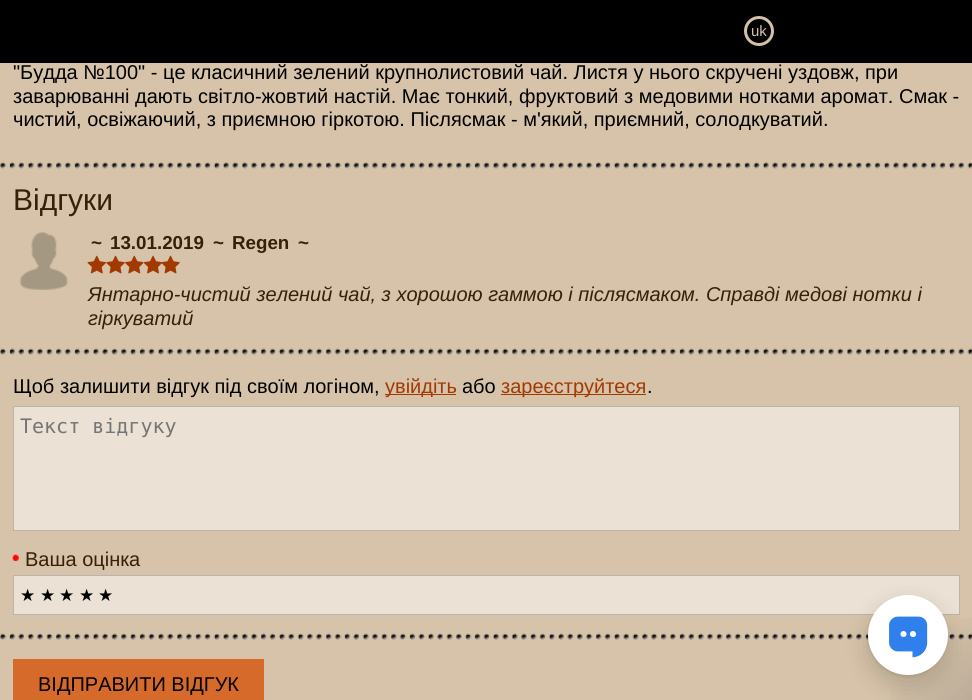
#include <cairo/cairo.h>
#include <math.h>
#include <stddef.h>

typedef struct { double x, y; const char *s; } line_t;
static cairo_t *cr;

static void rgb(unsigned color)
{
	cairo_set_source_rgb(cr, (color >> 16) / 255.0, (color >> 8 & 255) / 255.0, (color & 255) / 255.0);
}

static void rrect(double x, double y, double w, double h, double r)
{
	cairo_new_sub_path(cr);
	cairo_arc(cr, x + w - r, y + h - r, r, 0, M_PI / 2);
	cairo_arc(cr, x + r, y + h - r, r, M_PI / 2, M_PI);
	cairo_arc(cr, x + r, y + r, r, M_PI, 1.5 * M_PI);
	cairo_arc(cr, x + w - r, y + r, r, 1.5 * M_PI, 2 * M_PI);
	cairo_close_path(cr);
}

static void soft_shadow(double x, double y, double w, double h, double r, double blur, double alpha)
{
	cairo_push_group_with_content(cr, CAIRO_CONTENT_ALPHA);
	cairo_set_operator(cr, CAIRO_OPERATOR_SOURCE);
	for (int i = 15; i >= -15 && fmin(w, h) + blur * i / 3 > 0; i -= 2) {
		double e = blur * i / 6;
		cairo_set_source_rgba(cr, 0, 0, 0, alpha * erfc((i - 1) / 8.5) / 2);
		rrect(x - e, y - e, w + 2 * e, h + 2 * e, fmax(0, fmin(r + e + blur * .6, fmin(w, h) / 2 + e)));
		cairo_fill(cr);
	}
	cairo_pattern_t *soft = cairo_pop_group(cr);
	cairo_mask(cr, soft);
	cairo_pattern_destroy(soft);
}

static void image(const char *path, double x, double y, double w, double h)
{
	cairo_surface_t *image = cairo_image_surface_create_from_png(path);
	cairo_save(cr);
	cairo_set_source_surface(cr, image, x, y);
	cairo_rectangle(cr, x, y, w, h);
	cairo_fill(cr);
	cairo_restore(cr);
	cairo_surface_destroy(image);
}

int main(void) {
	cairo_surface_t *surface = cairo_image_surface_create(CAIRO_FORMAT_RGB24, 972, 700);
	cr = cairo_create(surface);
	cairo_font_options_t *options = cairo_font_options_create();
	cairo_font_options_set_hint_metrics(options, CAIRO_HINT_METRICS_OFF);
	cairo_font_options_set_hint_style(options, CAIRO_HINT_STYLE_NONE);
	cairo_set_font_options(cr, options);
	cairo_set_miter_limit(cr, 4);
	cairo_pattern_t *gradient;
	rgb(0xd6c3a9);
	cairo_paint(cr);
	rgb(0x000000);
	cairo_rectangle(cr, 0, 0, 972, 63);
	cairo_fill(cr);
	cairo_arc(cr, 759, 31, 13.5, 0, 2 * M_PI);
	rgb(0xd4c1a8);
	cairo_set_line_width(cr, 3);
	cairo_stroke(cr);
	image("img/1.png", 0, 162, 972, 7);
	image("img/2.png", 20, 232, 48, 58);
	image("img/3.png", 87, 255, 19, 19);
	image("img/4.png", 106, 255, 19, 19);
	image("img/5.png", 125, 255, 19, 19);
	image("img/6.png", 143, 255, 20, 19);
	image("img/7.png", 161, 255, 19, 19);
	image("img/8.png", 0, 348, 972, 7);
	rgb(0xa23900);
	cairo_rectangle(cr, 385, 394, 71, 1);
	cairo_fill(cr);
	cairo_rectangle(cr, 501, 394, 145, 1);
	cairo_fill(cr);
	rgb(0xebe1d4);
	cairo_rectangle(cr, 13.5, 406.5, 946, 124);
	cairo_fill_preserve(cr);
	rgb(0xbcb4a9);
	cairo_set_line_width(cr, 1);
	cairo_stroke(cr);
	image("img/9.png", 12, 554, 7, 7);
	rgb(0xebe1d4);
	cairo_rectangle(cr, 13.5, 575.5, 946, 39);
	cairo_fill_preserve(cr);
	rgb(0xbcb4a9);
	cairo_stroke(cr);
	image("img/10.png", 0, 633, 972, 7);
	rgb(0xd66a2a);
	cairo_rectangle(cr, 13, 659, 251, 41);
	cairo_fill(cr);
	gradient = cairo_pattern_create_linear(848, 575, 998, 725);
	cairo_pattern_add_color_stop_rgba(gradient, 0.5, 0.055, 0.055, 0.161, 0);
	cairo_pattern_add_color_stop_rgba(gradient, 1, 0.055, 0.055, 0.161, 0.2);
	cairo_set_source(cr, gradient);
	cairo_pattern_destroy(gradient);
	cairo_rectangle(cr, 890, 618, 82, 82);
	cairo_fill(cr);
	rgb(0x000000);
	soft_shadow(868, 605, 80, 80, 40, 12.5, 0.16);
	soft_shadow(871, 600, 73, 73, 36.5, 3, 0.32);
	rgb(0xffffff);
	cairo_arc(cr, 908, 635, 40, 0, 2 * M_PI);
	cairo_fill(cr);
	image("img/11.png", 889, 616, 39, 42);
	cairo_select_font_face(cr, "Liberation Sans", CAIRO_FONT_SLANT_NORMAL, CAIRO_FONT_WEIGHT_NORMAL);
	cairo_set_font_size(cr, 15);
	rgb(0xd4c1a8);
	cairo_move_to(cr, 751, 36);
	cairo_show_text(cr, "uk");
	cairo_set_font_size(cr, 20);
	rgb(0x000000);
	{
		static const line_t items[] = {
			{13, 79, "\"Будда №100\" - це класичний зелений крупнолистовий чай. Листя у нього скручені уздовж, при"},
			{13, 103, "заварюванні дають світло-жовтий настій. Має тонкий, фруктовий з медовими нотками аромат. Смак -"},
			{13, 126, "чистий, освіжаючий, з приємною гіркотою. Післясмак - м'який, приємний, солодкуватий."},
		};
		for (size_t i = 0; i < sizeof items / sizeof *items; i++) {
			cairo_move_to(cr, items[i].x, items[i].y);
			cairo_show_text(cr, items[i].s);
		}
	}
	cairo_set_font_size(cr, 30);
	rgb(0x372008);
	cairo_move_to(cr, 13, 210);
	cairo_show_text(cr, "Відгуки");
	cairo_select_font_face(cr, "Liberation Sans", CAIRO_FONT_SLANT_NORMAL, CAIRO_FONT_WEIGHT_BOLD);
	cairo_set_font_size(cr, 18.75);
	{
		static const line_t items[] = {
			{91, 249, "~"},
			{110, 249, "13.01.2019"},
			{213, 249, "~"},
			{232, 249, "Regen"},
			{298, 249, "~"},
		};
		for (size_t i = 0; i < sizeof items / sizeof *items; i++) {
			cairo_move_to(cr, items[i].x, items[i].y);
			cairo_show_text(cr, items[i].s);
		}
	}
	cairo_select_font_face(cr, "Liberation Sans", CAIRO_FONT_SLANT_ITALIC, CAIRO_FONT_WEIGHT_NORMAL);
	cairo_set_font_size(cr, 20);
	cairo_move_to(cr, 88, 301);
	cairo_show_text(cr, "Янтарно-чистий зелений чай, з хорошою гаммою і післясмаком. Справді медові нотки і");
	cairo_move_to(cr, 88, 325);
	cairo_show_text(cr, "гіркуватий");
	cairo_select_font_face(cr, "Liberation Sans", CAIRO_FONT_SLANT_NORMAL, CAIRO_FONT_WEIGHT_NORMAL);
	rgb(0x000000);
	cairo_move_to(cr, 13, 393);
	cairo_show_text(cr, "Щоб залишити відгук під своїм логіном,");
	rgb(0xa23900);
	cairo_move_to(cr, 385, 393);
	cairo_show_text(cr, "увійдіть");
	rgb(0x000000);
	cairo_move_to(cr, 462, 393);
	cairo_show_text(cr, "або");
	rgb(0xa23900);
	cairo_move_to(cr, 501, 393);
	cairo_show_text(cr, "зареєструйтеся");
	rgb(0x000000);
	cairo_move_to(cr, 647, 393);
	cairo_show_text(cr, ".");
	cairo_select_font_face(cr, "DejaVu Sans Mono", CAIRO_FONT_SLANT_NORMAL, CAIRO_FONT_WEIGHT_NORMAL);
	rgb(0x757575);
	cairo_move_to(cr, 20, 433);
	cairo_show_text(cr, "Текст відгуку");
	cairo_select_font_face(cr, "Liberation Sans", CAIRO_FONT_SLANT_NORMAL, CAIRO_FONT_WEIGHT_NORMAL);
	rgb(0x372008);
	cairo_move_to(cr, 25, 566);
	cairo_show_text(cr, "Ваша оцінка");
	cairo_select_font_face(cr, "DejaVu Sans", CAIRO_FONT_SLANT_NORMAL, CAIRO_FONT_WEIGHT_NORMAL);
	cairo_set_font_size(cr, 17);
	rgb(0x000000);
	{
		static const line_t items[] = {
			{20, 601, "★"},
			{40, 601, "★"},
			{59, 601, "★"},
			{79, 601, "★"},
			{98, 601, "★"},
		};
		for (size_t i = 0; i < sizeof items / sizeof *items; i++) {
			cairo_move_to(cr, items[i].x, items[i].y);
			cairo_show_text(cr, items[i].s);
		}
	}
	cairo_select_font_face(cr, "Liberation Sans", CAIRO_FONT_SLANT_NORMAL, CAIRO_FONT_WEIGHT_NORMAL);
	cairo_set_font_size(cr, 20);
	cairo_move_to(cr, 38, 691);
	cairo_show_text(cr, "ВІДПРАВИТИ ВІДГУК");
	cairo_surface_write_to_png(surface, "page.png");
	cairo_font_options_destroy(options);
	cairo_destroy(cr);
	cairo_surface_destroy(surface);
	return 0;
}
